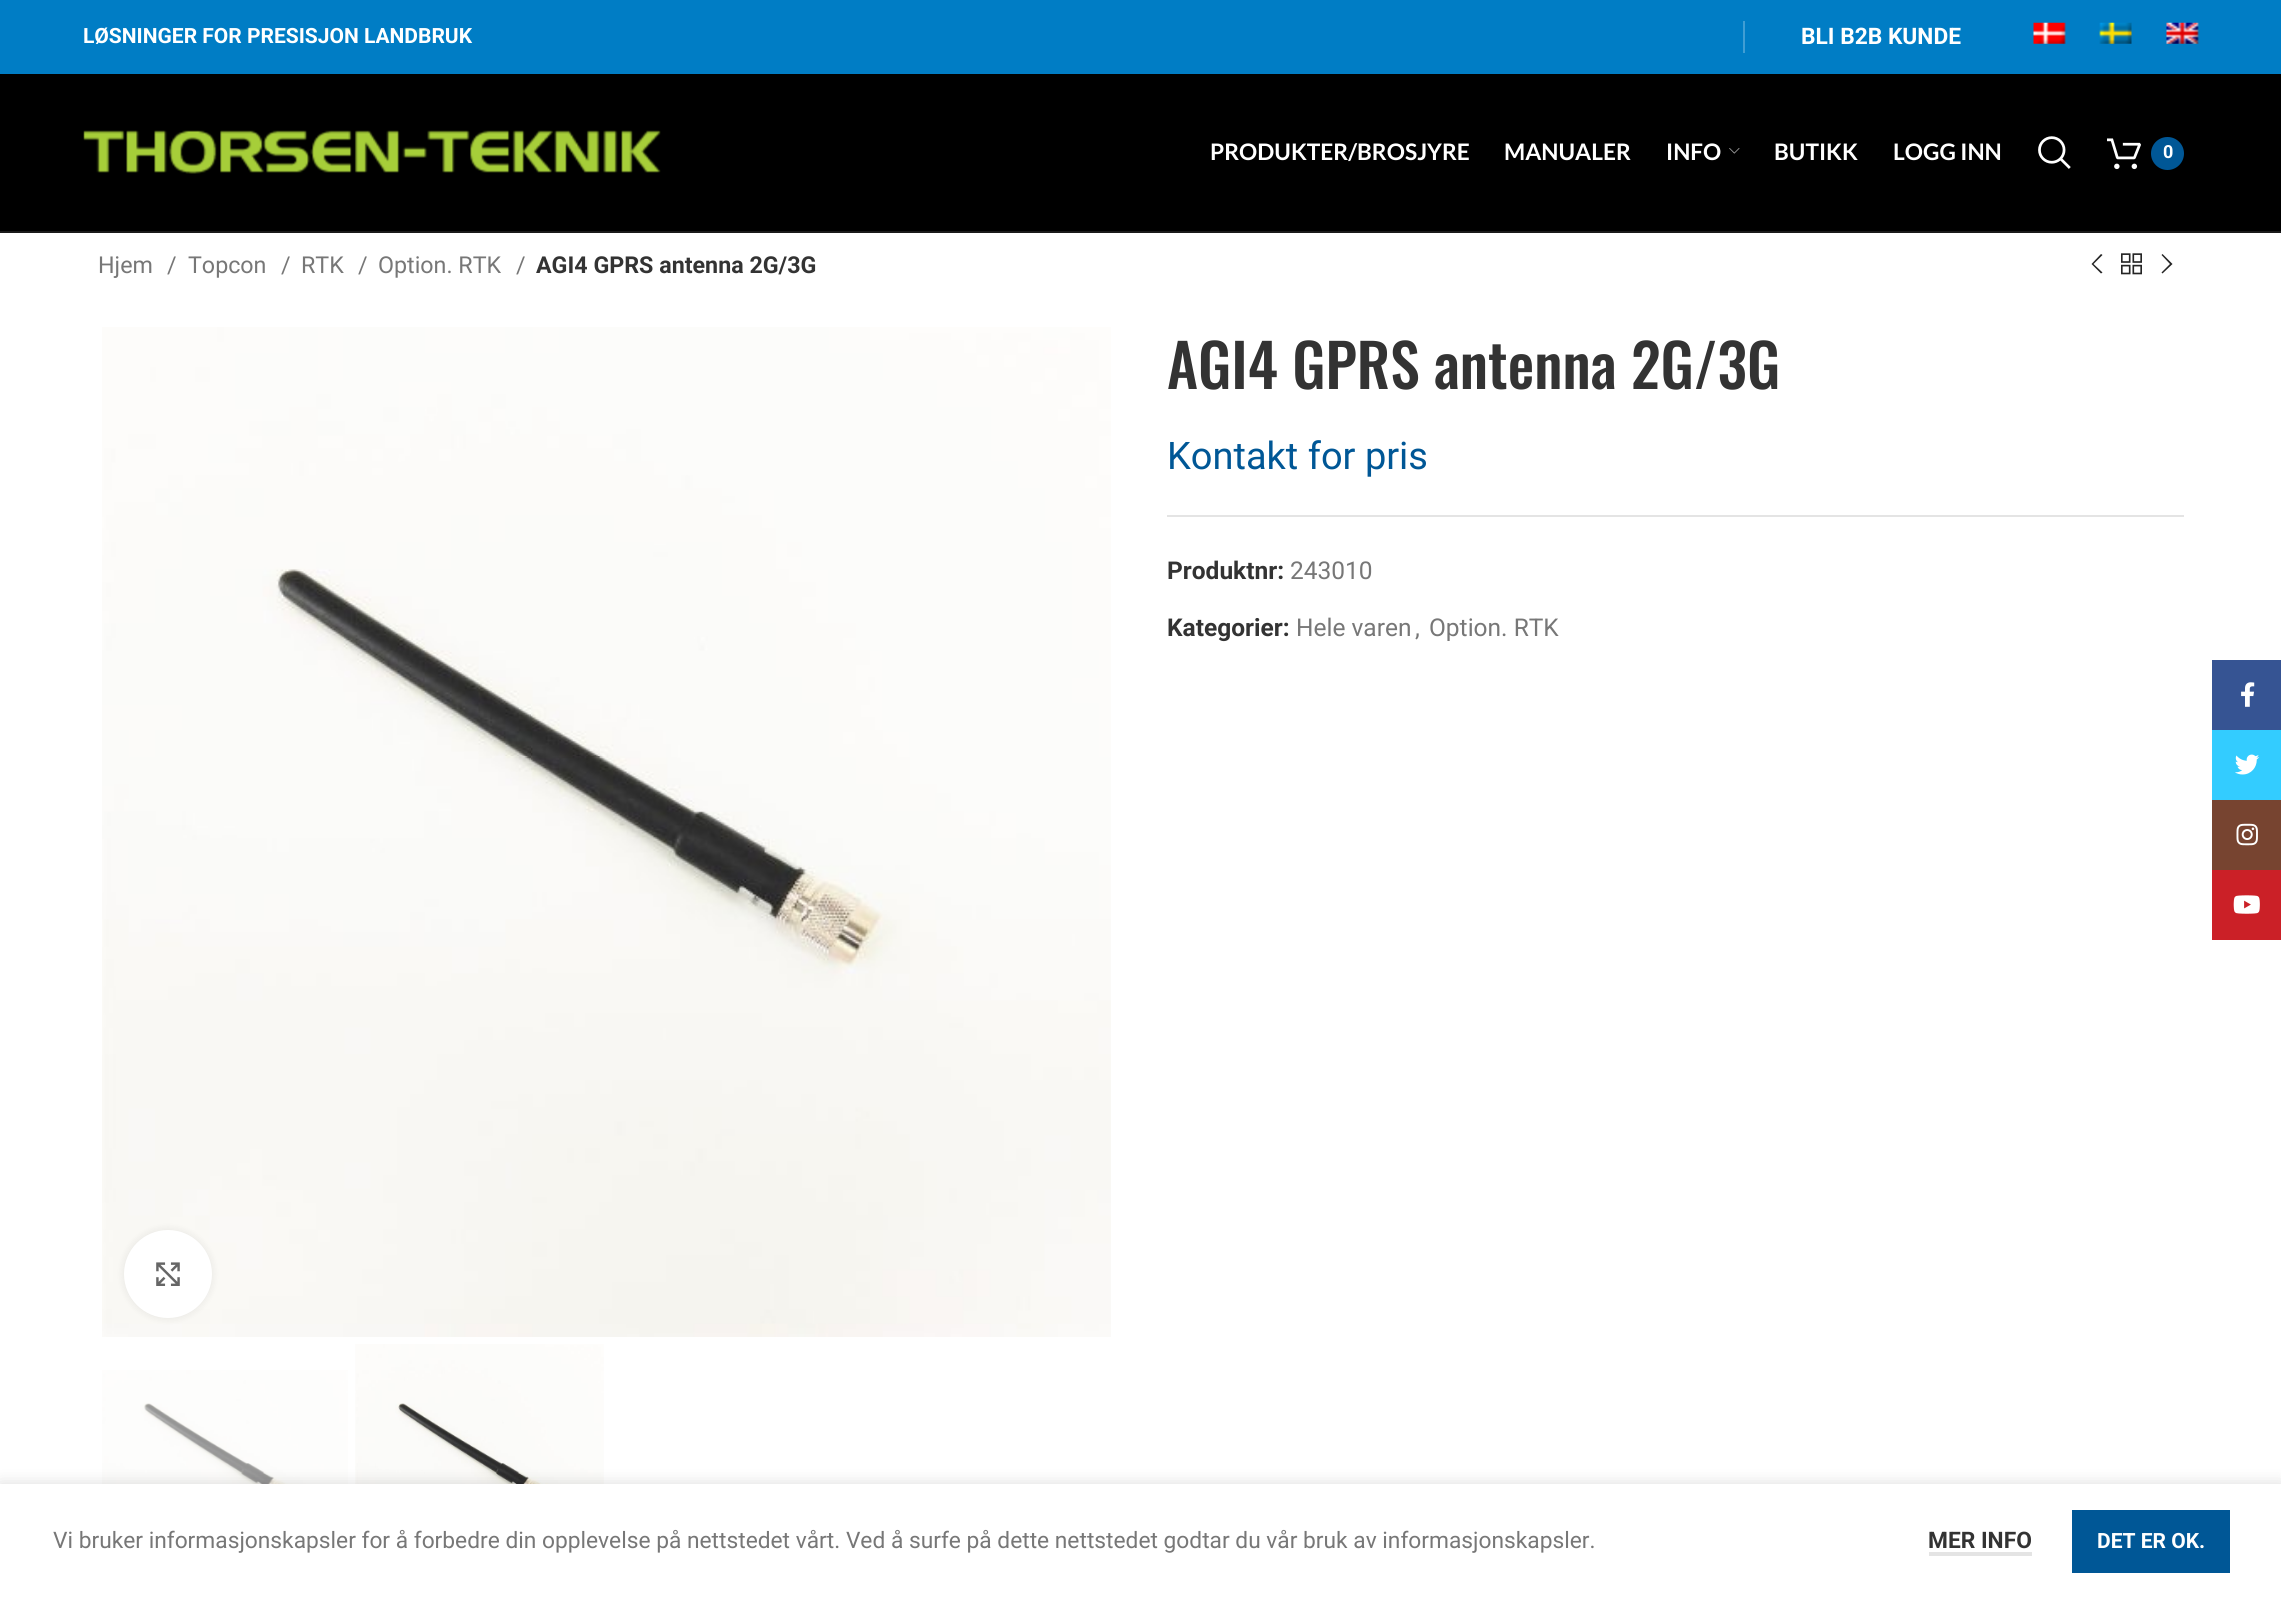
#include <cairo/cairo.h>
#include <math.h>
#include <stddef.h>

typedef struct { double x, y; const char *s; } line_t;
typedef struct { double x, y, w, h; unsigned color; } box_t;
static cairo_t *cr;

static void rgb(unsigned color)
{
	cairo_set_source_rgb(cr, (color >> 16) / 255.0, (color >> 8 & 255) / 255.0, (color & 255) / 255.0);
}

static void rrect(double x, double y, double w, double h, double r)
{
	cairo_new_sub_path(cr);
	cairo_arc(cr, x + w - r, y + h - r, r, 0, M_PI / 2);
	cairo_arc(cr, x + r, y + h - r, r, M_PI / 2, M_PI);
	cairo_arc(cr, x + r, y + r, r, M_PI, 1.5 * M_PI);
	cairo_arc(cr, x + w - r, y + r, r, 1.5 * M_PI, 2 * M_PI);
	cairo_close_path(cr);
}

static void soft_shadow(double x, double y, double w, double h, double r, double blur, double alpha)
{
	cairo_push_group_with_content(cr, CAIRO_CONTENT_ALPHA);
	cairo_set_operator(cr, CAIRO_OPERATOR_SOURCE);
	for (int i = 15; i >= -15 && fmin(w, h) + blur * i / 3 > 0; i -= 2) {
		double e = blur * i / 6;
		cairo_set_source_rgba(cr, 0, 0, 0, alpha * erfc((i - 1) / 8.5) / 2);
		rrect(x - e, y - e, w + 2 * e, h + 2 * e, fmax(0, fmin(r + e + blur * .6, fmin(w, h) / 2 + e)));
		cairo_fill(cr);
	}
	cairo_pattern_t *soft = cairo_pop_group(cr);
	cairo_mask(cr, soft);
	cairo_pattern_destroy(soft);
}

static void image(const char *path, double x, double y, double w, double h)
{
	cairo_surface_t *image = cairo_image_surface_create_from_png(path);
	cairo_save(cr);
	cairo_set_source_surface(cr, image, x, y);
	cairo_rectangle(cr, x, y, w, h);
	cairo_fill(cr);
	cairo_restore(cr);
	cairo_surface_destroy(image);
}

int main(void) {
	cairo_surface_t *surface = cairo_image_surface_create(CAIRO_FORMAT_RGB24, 2281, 1598);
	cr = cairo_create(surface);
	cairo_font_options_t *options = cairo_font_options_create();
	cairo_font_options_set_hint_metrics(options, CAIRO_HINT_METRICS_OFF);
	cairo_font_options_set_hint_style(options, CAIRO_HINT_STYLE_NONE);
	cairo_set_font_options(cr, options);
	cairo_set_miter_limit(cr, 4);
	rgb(0xffffff);
	cairo_paint(cr);
	rgb(0x007dc5);
	cairo_rectangle(cr, 0, 0, 2281, 74);
	cairo_fill(cr);
	rgb(0x409ed4);
	cairo_rectangle(cr, 1743, 21, 2, 32);
	cairo_fill(cr);
	image("img/1.png", 2033, 22, 33, 22);
	image("img/2.png", 2099, 22, 33, 22);
	image("img/3.png", 2166, 22, 33, 22);
	rgb(0x000000);
	cairo_rectangle(cr, 0, 74, 2281, 157);
	cairo_fill(cr);
	rgb(0x1a1a1a);
	cairo_rectangle(cr, 0, 231, 2281, 2);
	cairo_fill(cr);
	image("img/4.png", 83, 130, 578, 44);
	image("img/5.png", 1729, 148, 11, 6);
	image("img/6.png", 2038, 136, 33, 33);
	image("img/7.png", 2107, 138, 34, 32);
	rgb(0x005796);
	cairo_arc(cr, 2167.5, 153.5, 16.5, 0, 2 * M_PI);
	cairo_fill(cr);
	rgb(0x242424);
	cairo_new_path(cr);
	cairo_move_to(cr, 2102.5, 255);
	cairo_line_to(cr, 2101, 254);
	cairo_line_to(cr, 2091.5, 264);
	cairo_line_to(cr, 2101, 273.5);
	cairo_line_to(cr, 2102.5, 272.5);
	cairo_line_to(cr, 2093.5, 264);
	cairo_close_path(cr);
	cairo_fill(cr);
	image("img/8.png", 2121, 253, 21, 22);
	cairo_new_path(cr);
	cairo_move_to(cr, 2161.5, 255);
	cairo_line_to(cr, 2170, 264);
	cairo_line_to(cr, 2161.5, 272.5);
	cairo_line_to(cr, 2162.5, 273.5);
	cairo_line_to(cr, 2172.5, 264);
	cairo_line_to(cr, 2162.5, 254);
	cairo_close_path(cr);
	cairo_fill(cr);
	image("img/9.png", 102, 327, 1009, 1010);
	rgb(0x000000);
	soft_shadow(124, 1230, 88, 88, 44, 4.5, 0.08);
	rgb(0xffffff);
	cairo_arc(cr, 168, 1274, 44, 0, 2 * M_PI);
	cairo_fill(cr);
	image("img/10.png", 156, 1262, 24, 24);
	image("img/11.png", 102, 1370, 246, 114);
	image("img/12.png", 355, 1344, 249, 140);
	rgb(0xe4e4e4);
	cairo_rectangle(cr, 1167, 515, 1017, 2);
	cairo_fill(cr);
	rgb(0x365493);
	cairo_rectangle(cr, 2212, 660, 69, 70);
	cairo_fill(cr);
	image("img/13.png", 2241, 682, 14, 25);
	rgb(0x33ccff);
	cairo_rectangle(cr, 2212, 730, 69, 70);
	cairo_fill(cr);
	image("img/14.png", 2235, 754, 25, 21);
	rgb(0x774430);
	cairo_rectangle(cr, 2212, 800, 69, 70);
	cairo_fill(cr);
	image("img/15.png", 2236, 823, 22, 23);
	rgb(0xcb2027);
	cairo_rectangle(cr, 2212, 870, 69, 70);
	cairo_fill(cr);
	image("img/16.png", 2233, 895, 27, 19);
	rgb(0x000000);
	soft_shadow(0, 1484, 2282, 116, 0, 8, 0.14);
	{
		static const box_t items[] = {
			{0, 1484, 2281, 114, 0xffffff},
			{1929, 1552, 103, 4, 0xe4e4e4},
			{2072, 1510, 158, 63, 0x005796},
		};
		for (size_t i = 0; i < sizeof items / sizeof *items; i++) {
			rgb(items[i].color);
			cairo_rectangle(cr, items[i].x, items[i].y, items[i].w, items[i].h);
			cairo_fill(cr);
		}
	}
	cairo_select_font_face(cr, "Roboto", CAIRO_FONT_SLANT_NORMAL, CAIRO_FONT_WEIGHT_BOLD);
	cairo_set_font_size(cr, 21);
	rgb(0xffffff);
	cairo_move_to(cr, 83, 43);
	cairo_show_text(cr, "LØSNINGER FOR PRESISJON LANDBRUK");
	cairo_set_font_size(cr, 22.75);
	cairo_move_to(cr, 1801, 44);
	cairo_show_text(cr, "BLI B2B KUNDE");
	cairo_select_font_face(cr, "Lato", CAIRO_FONT_SLANT_NORMAL, CAIRO_FONT_WEIGHT_BOLD);
	{
		static const line_t items[] = {
			{1210, 160, "PRODUKTER/BROSJYRE"},
			{1504, 160, "MANUALER"},
			{1666, 160, "INFO"},
			{1774, 160, "BUTIKK"},
			{1893, 160, "LOGG INN"},
		};
		for (size_t i = 0; i < sizeof items / sizeof *items; i++) {
			cairo_move_to(cr, items[i].x, items[i].y);
			cairo_show_text(cr, items[i].s);
		}
	}
	cairo_select_font_face(cr, "Roboto", CAIRO_FONT_SLANT_NORMAL, CAIRO_FONT_WEIGHT_BOLD);
	cairo_set_font_size(cr, 18);
	cairo_move_to(cr, 2163, 158);
	cairo_show_text(cr, "0");
	cairo_select_font_face(cr, "Roboto", CAIRO_FONT_SLANT_NORMAL, CAIRO_FONT_WEIGHT_NORMAL);
	cairo_set_font_size(cr, 23.25);
	rgb(0x777777);
	{
		static const line_t items[] = {
			{98, 273, "Hjem"},
			{167, 273, "/"},
			{188, 273, "Topcon"},
			{281, 273, "/"},
			{301, 273, "RTK"},
			{358, 273, "/"},
			{378, 273, "Option. RTK"},
			{516, 273, "/"},
		};
		for (size_t i = 0; i < sizeof items / sizeof *items; i++) {
			cairo_move_to(cr, items[i].x, items[i].y);
			cairo_show_text(cr, items[i].s);
		}
	}
	cairo_select_font_face(cr, "Roboto", CAIRO_FONT_SLANT_NORMAL, CAIRO_FONT_WEIGHT_BOLD);
	rgb(0x333333);
	cairo_move_to(cr, 536, 273);
	cairo_show_text(cr, "AGI4 GPRS antenna 2G/3G");
	cairo_select_font_face(cr, "Oswald Medium", CAIRO_FONT_SLANT_NORMAL, CAIRO_FONT_WEIGHT_NORMAL);
	cairo_set_font_size(cr, 59.5);
	cairo_move_to(cr, 1167, 389);
	cairo_show_text(cr, "AGI4 GPRS antenna 2G/3G");
	cairo_select_font_face(cr, "Roboto", CAIRO_FONT_SLANT_NORMAL, CAIRO_FONT_WEIGHT_NORMAL);
	cairo_set_font_size(cr, 38);
	rgb(0x005796);
	cairo_move_to(cr, 1167, 469);
	cairo_show_text(cr, "Kontakt for pris");
	cairo_select_font_face(cr, "Roboto", CAIRO_FONT_SLANT_NORMAL, CAIRO_FONT_WEIGHT_BOLD);
	cairo_set_font_size(cr, 24.5);
	rgb(0x333333);
	cairo_move_to(cr, 1167, 579);
	cairo_show_text(cr, "Produktnr:");
	cairo_select_font_face(cr, "Roboto", CAIRO_FONT_SLANT_NORMAL, CAIRO_FONT_WEIGHT_NORMAL);
	rgb(0x777777);
	cairo_move_to(cr, 1290, 579);
	cairo_show_text(cr, "243010");
	cairo_select_font_face(cr, "Roboto", CAIRO_FONT_SLANT_NORMAL, CAIRO_FONT_WEIGHT_BOLD);
	rgb(0x333333);
	cairo_move_to(cr, 1167, 636);
	cairo_show_text(cr, "Kategorier:");
	cairo_select_font_face(cr, "Roboto", CAIRO_FONT_SLANT_NORMAL, CAIRO_FONT_WEIGHT_NORMAL);
	rgb(0x777777);
	{
		static const line_t items[] = {
			{1296, 636, "Hele varen"},
			{1415, 636, ","},
			{1429, 636, "Option. RTK"},
		};
		for (size_t i = 0; i < sizeof items / sizeof *items; i++) {
			cairo_move_to(cr, items[i].x, items[i].y);
			cairo_show_text(cr, items[i].s);
		}
	}
	cairo_set_font_size(cr, 22.75);
	cairo_move_to(cr, 53, 1548);
	cairo_show_text(cr, "Vi bruker informasjonskapsler for å forbedre din opplevelse på nettstedet vårt. Ved å surfe på dette nettstedet godtar du vår bruk av informasjonskapsler.");
	cairo_select_font_face(cr, "Roboto", CAIRO_FONT_SLANT_NORMAL, CAIRO_FONT_WEIGHT_BOLD);
	rgb(0x333333);
	cairo_move_to(cr, 1928, 1548);
	cairo_show_text(cr, "MER INFO");
	cairo_set_font_size(cr, 21);
	rgb(0xffffff);
	cairo_move_to(cr, 2097, 1548);
	cairo_show_text(cr, "DET ER OK.");
	cairo_surface_write_to_png(surface, "page.png");
	cairo_font_options_destroy(options);
	cairo_destroy(cr);
	cairo_surface_destroy(surface);
	return 0;
}
